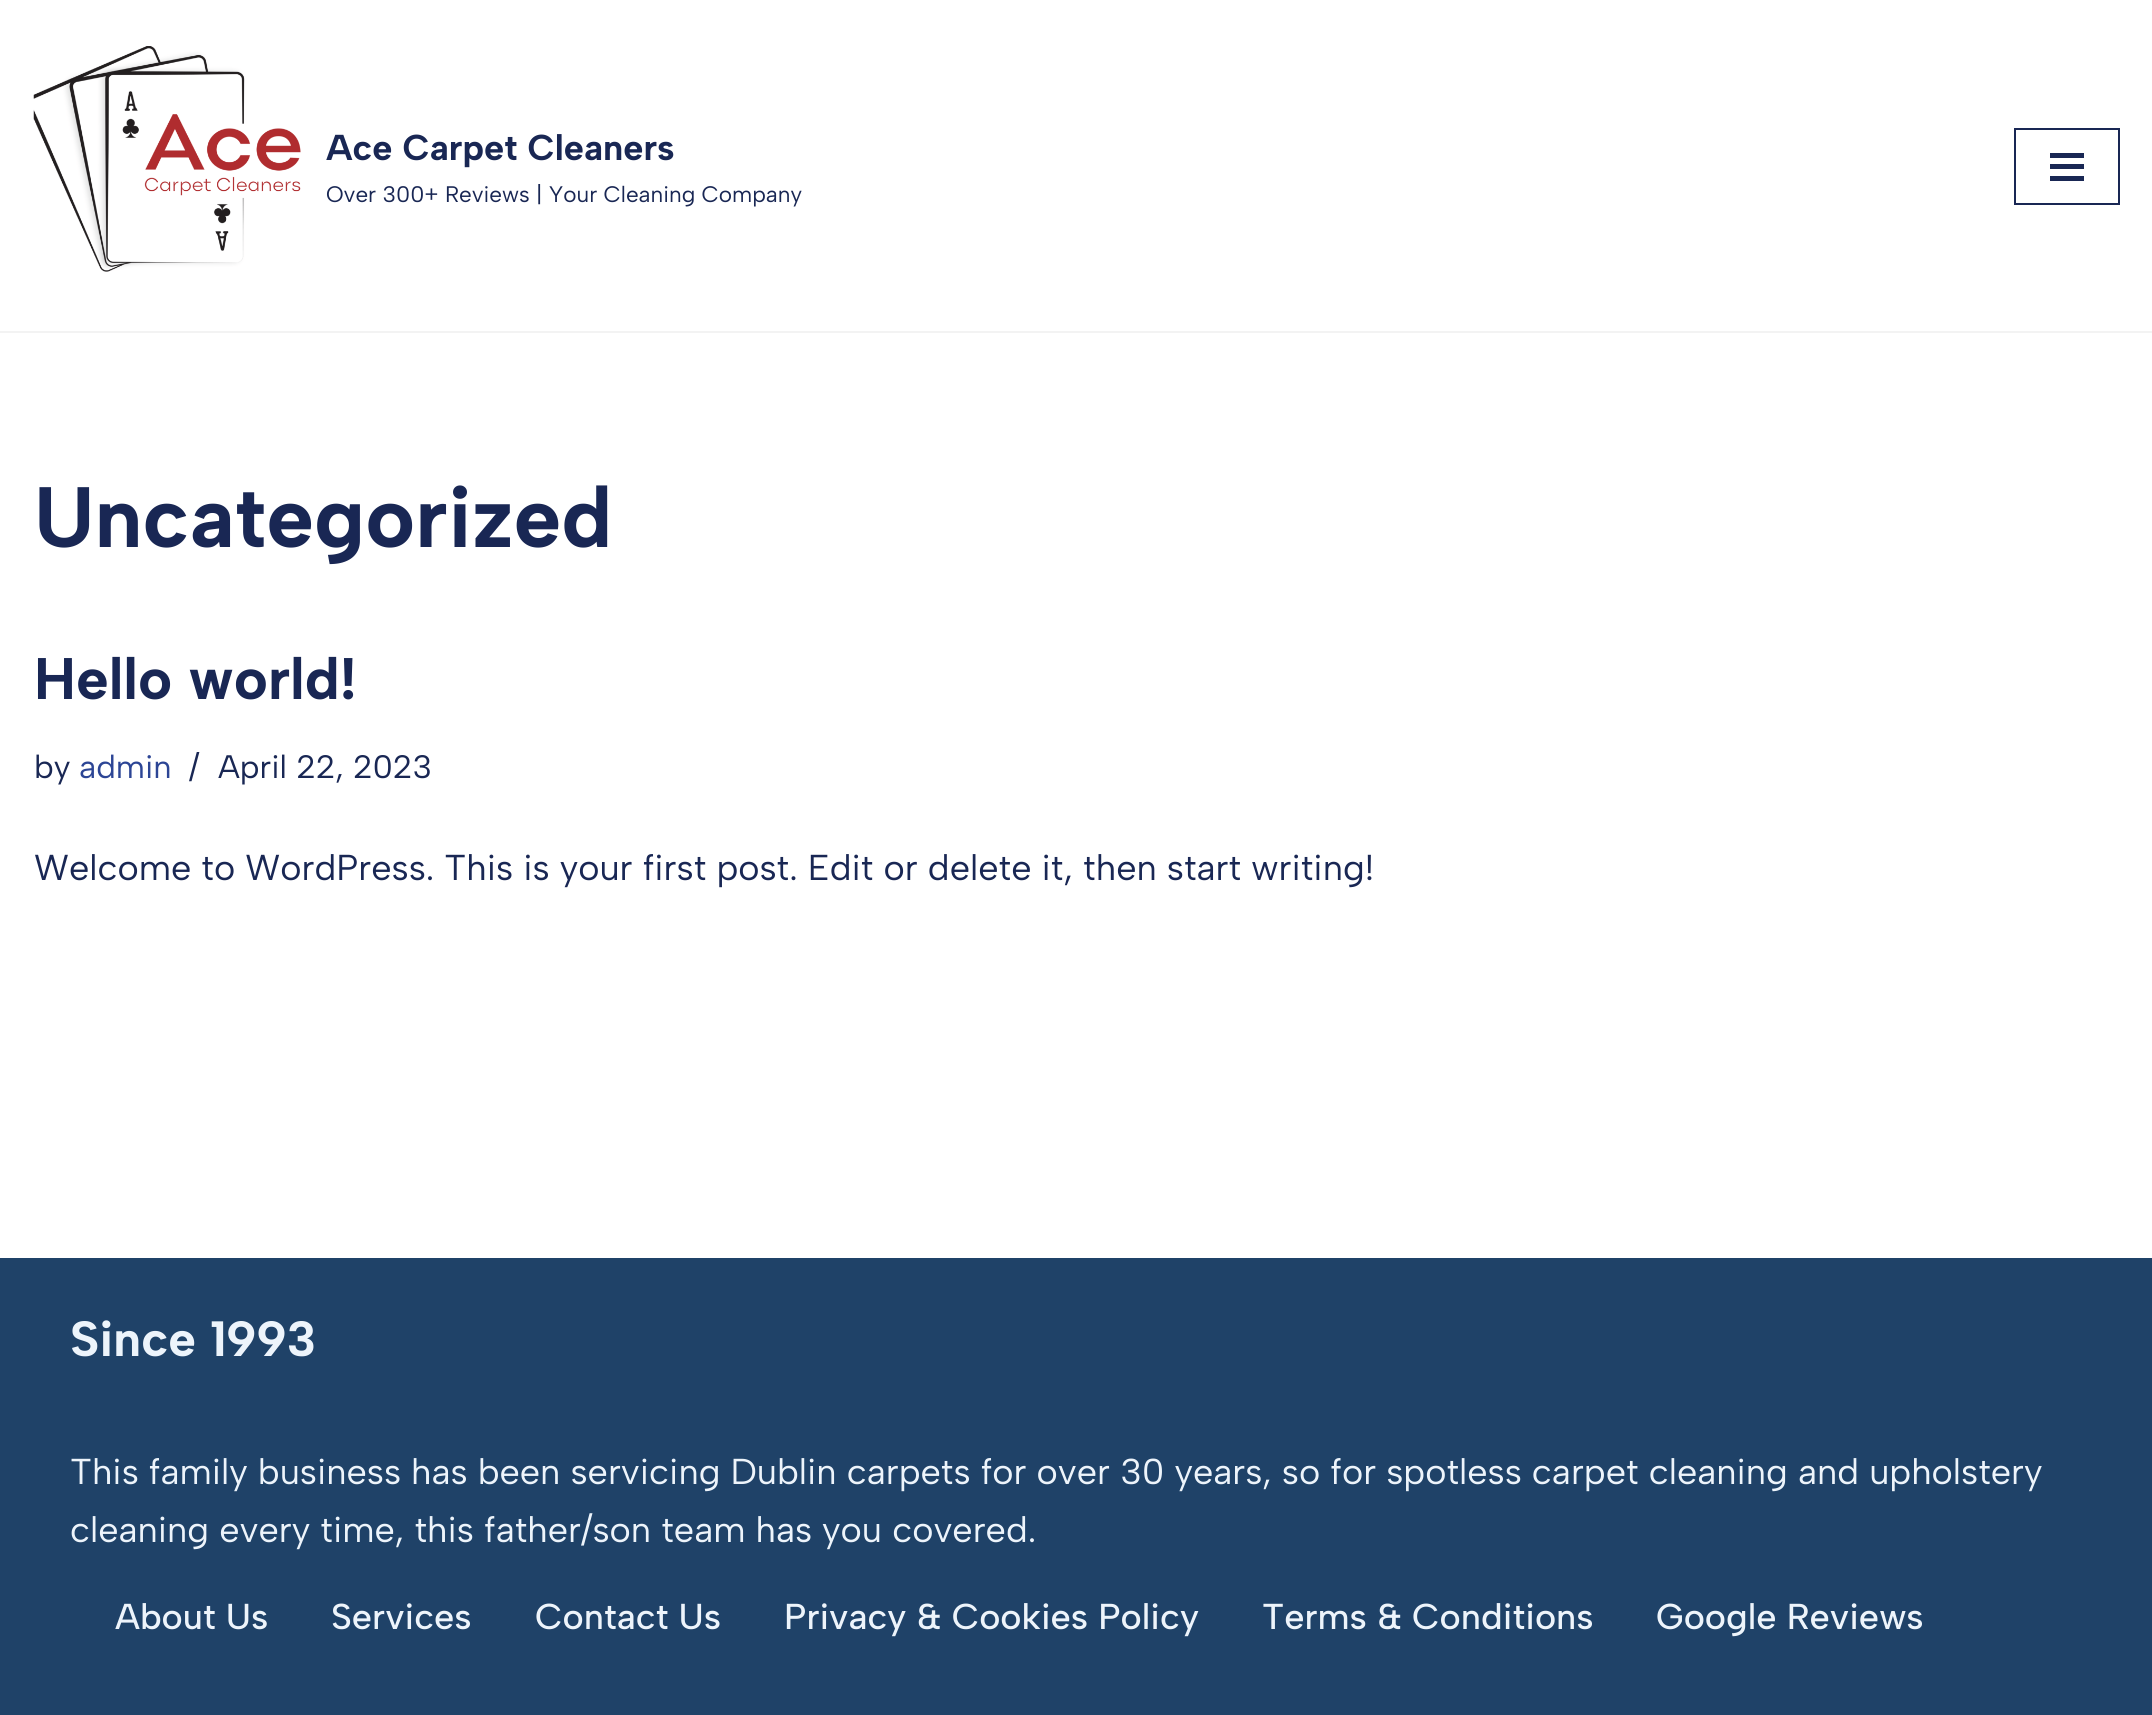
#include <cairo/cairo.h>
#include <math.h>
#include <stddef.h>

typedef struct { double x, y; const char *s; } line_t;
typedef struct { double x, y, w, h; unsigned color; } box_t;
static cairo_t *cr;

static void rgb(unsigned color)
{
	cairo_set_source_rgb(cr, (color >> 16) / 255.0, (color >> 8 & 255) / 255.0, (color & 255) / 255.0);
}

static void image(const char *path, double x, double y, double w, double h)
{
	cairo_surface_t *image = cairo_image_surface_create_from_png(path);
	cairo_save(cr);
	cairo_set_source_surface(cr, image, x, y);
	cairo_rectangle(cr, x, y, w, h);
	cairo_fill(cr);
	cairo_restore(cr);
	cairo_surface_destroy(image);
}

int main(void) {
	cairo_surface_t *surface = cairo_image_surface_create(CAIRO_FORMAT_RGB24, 2152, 1715);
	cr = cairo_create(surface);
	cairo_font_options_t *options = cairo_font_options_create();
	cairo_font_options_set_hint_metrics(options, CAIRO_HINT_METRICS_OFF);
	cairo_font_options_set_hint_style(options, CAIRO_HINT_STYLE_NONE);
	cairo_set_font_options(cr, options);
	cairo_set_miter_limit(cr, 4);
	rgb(0xffffff);
	cairo_paint(cr);
	image("img/1.png", 33, 46, 268, 226);
	cairo_rectangle(cr, 2015, 129, 104, 75);
	rgb(0x192754);
	cairo_stroke(cr);
	{
		static const box_t items[] = {
			{2050, 153, 34, 5, 0x192754},
			{2050, 164, 34, 5, 0x192754},
			{2050, 176, 34, 5, 0x192754},
			{0, 331, 2152, 2, 0xf3f3f3},
			{0, 1258, 2152, 457, 0x1f4268},
		};
		for (size_t i = 0; i < sizeof items / sizeof *items; i++) {
			rgb(items[i].color);
			cairo_rectangle(cr, items[i].x, items[i].y, items[i].w, items[i].h);
			cairo_fill(cr);
		}
	}
	cairo_select_font_face(cr, "Albert Sans", CAIRO_FONT_SLANT_NORMAL, CAIRO_FONT_WEIGHT_BOLD);
	cairo_set_font_size(cr, 36);
	rgb(0x192754);
	cairo_move_to(cr, 326, 160);
	cairo_show_text(cr, "Ace Carpet Cleaners");
	cairo_select_font_face(cr, "Albert Sans", CAIRO_FONT_SLANT_NORMAL, CAIRO_FONT_WEIGHT_NORMAL);
	cairo_set_font_size(cr, 22.5);
	cairo_move_to(cr, 326, 202);
	cairo_show_text(cr, "Over 300+ Reviews | Your Cleaning Company");
	cairo_select_font_face(cr, "Albert Sans", CAIRO_FONT_SLANT_NORMAL, CAIRO_FONT_WEIGHT_BOLD);
	cairo_set_font_size(cr, 85.5);
	cairo_move_to(cr, 34, 547);
	cairo_show_text(cr, "Uncategorized");
	cairo_set_font_size(cr, 58.5);
	cairo_move_to(cr, 34, 699);
	cairo_show_text(cr, "Hello world!");
	cairo_select_font_face(cr, "Albert Sans", CAIRO_FONT_SLANT_NORMAL, CAIRO_FONT_WEIGHT_NORMAL);
	cairo_set_font_size(cr, 32.5);
	cairo_move_to(cr, 34, 778);
	cairo_show_text(cr, "by");
	rgb(0x2c4595);
	cairo_move_to(cr, 79, 778);
	cairo_show_text(cr, "admin");
	rgb(0x192754);
	cairo_move_to(cr, 189, 778);
	cairo_show_text(cr, "/");
	cairo_move_to(cr, 218, 778);
	cairo_show_text(cr, "April 22, 2023");
	cairo_set_font_size(cr, 36);
	cairo_move_to(cr, 34, 880);
	cairo_show_text(cr, "Welcome to WordPress. This is your first post. Edit or delete it, then start writing!");
	cairo_select_font_face(cr, "Albert Sans", CAIRO_FONT_SLANT_NORMAL, CAIRO_FONT_WEIGHT_BOLD);
	cairo_set_font_size(cr, 49.5);
	rgb(0xedf4fb);
	cairo_move_to(cr, 70, 1356);
	cairo_show_text(cr, "Since 1993");
	cairo_select_font_face(cr, "Albert Sans", CAIRO_FONT_SLANT_NORMAL, CAIRO_FONT_WEIGHT_NORMAL);
	cairo_set_font_size(cr, 36);
	cairo_move_to(cr, 70, 1484);
	cairo_show_text(cr, "This family business has been servicing Dublin carpets for over 30 years, so for spotless carpet cleaning and upholstery");
	cairo_move_to(cr, 70, 1542);
	cairo_show_text(cr, "cleaning every time, this father/son team has you covered.");
	cairo_select_font_face(cr, "Albert Sans Medium", CAIRO_FONT_SLANT_NORMAL, CAIRO_FONT_WEIGHT_NORMAL);
	{
		static const line_t items[] = {
			{115, 1629, "About Us"},
			{331, 1629, "Services"},
			{535, 1629, "Contact Us"},
			{784, 1629, "Privacy & Cookies Policy"},
			{1262, 1629, "Terms & Conditions"},
			{1656, 1629, "Google Reviews"},
		};
		for (size_t i = 0; i < sizeof items / sizeof *items; i++) {
			cairo_move_to(cr, items[i].x, items[i].y);
			cairo_show_text(cr, items[i].s);
		}
	}
	cairo_surface_write_to_png(surface, "page.png");
	cairo_font_options_destroy(options);
	cairo_destroy(cr);
	cairo_surface_destroy(surface);
	return 0;
}
